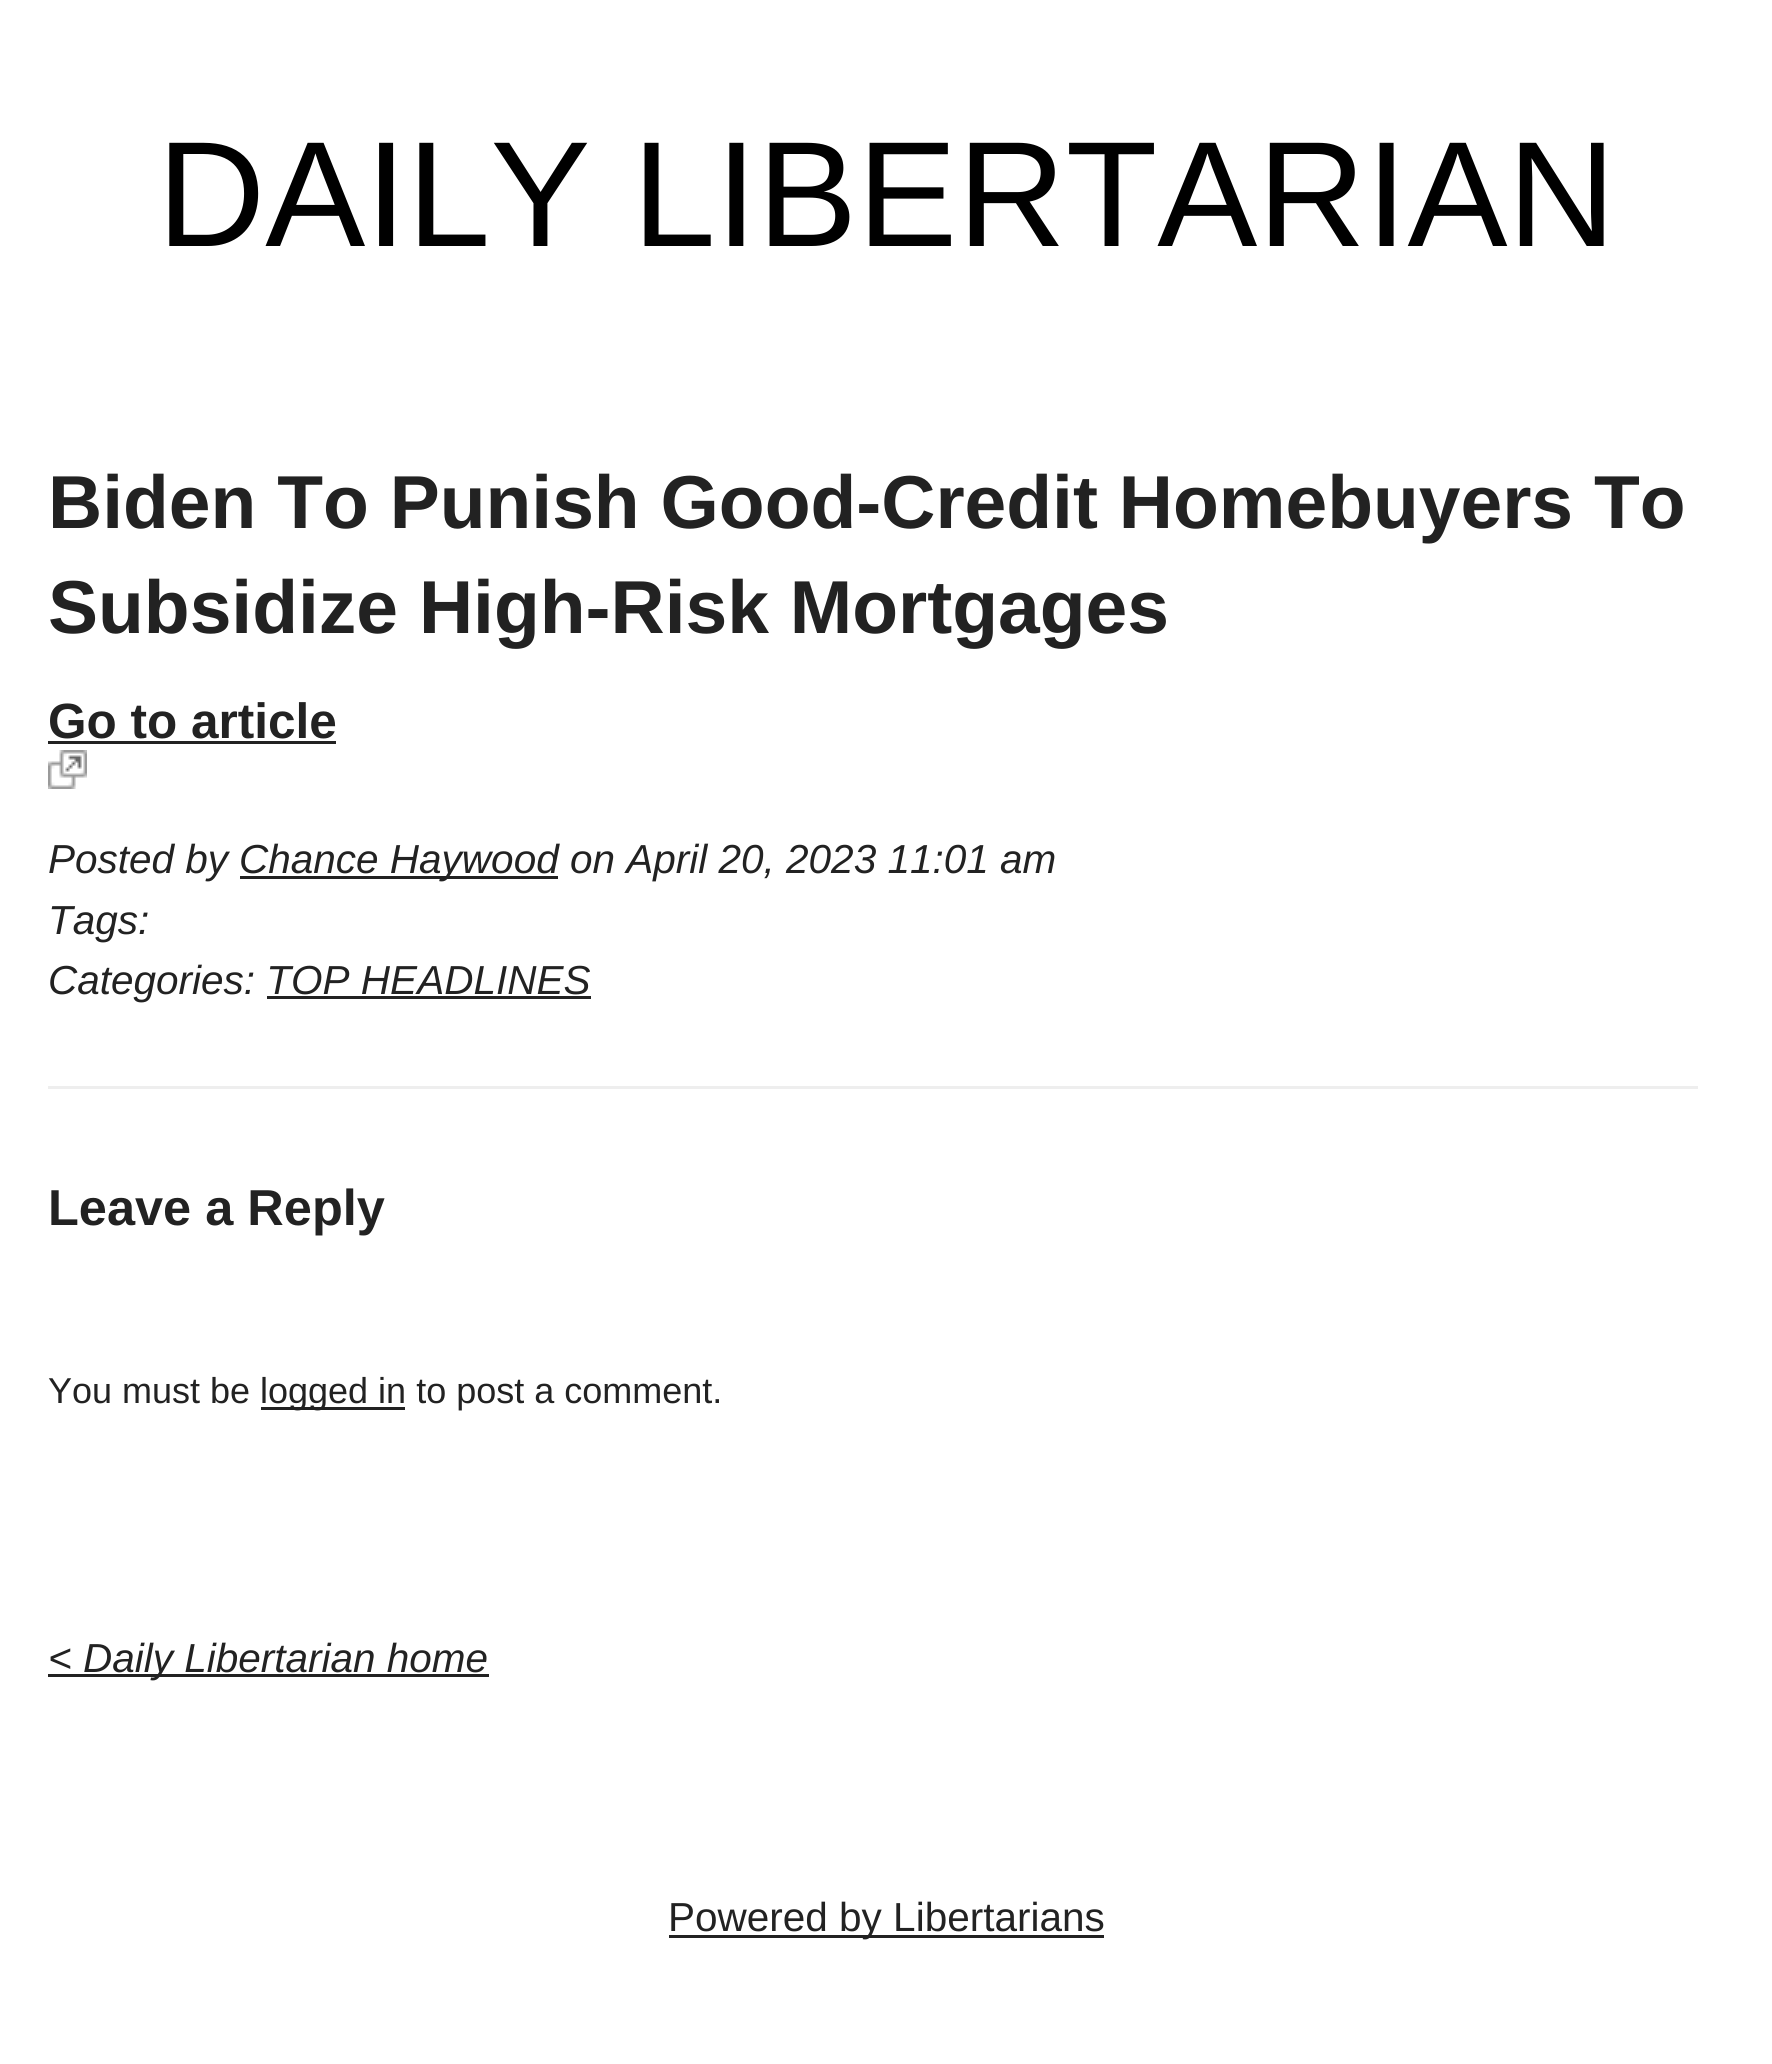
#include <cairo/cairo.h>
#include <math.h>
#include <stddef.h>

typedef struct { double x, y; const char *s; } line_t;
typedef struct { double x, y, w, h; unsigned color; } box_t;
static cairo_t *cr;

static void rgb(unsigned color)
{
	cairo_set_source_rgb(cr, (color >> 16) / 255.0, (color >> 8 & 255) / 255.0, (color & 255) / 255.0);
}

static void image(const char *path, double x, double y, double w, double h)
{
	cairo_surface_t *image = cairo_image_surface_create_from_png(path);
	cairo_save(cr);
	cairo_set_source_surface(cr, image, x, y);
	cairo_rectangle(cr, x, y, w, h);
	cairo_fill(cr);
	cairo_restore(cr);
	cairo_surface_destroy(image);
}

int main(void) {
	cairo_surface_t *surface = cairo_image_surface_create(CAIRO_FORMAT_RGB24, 1772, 2064);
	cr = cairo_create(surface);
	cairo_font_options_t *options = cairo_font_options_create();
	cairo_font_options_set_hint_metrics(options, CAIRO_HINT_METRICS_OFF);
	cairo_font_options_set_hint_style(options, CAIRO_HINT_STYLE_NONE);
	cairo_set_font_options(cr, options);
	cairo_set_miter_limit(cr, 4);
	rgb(0xffffff);
	cairo_paint(cr);
	rgb(0x222222);
	cairo_rectangle(cr, 48, 741, 288, 3);
	cairo_fill(cr);
	image("img/1.png", 48, 750, 39, 39);
	{
		static const box_t items[] = {
			{240, 876, 318, 3, 0x222222},
			{267, 996, 324, 3, 0x222222},
			{48, 1086, 1650, 3, 0xeeeeee},
			{261, 1407, 144, 3, 0x222222},
			{48, 1674, 441, 3, 0x222222},
			{669, 1935, 435, 3, 0x222222},
		};
		for (size_t i = 0; i < sizeof items / sizeof *items; i++) {
			rgb(items[i].color);
			cairo_rectangle(cr, items[i].x, items[i].y, items[i].w, items[i].h);
			cairo_fill(cr);
		}
	}
	cairo_select_font_face(cr, "Liberation Sans", CAIRO_FONT_SLANT_NORMAL, CAIRO_FONT_WEIGHT_NORMAL);
	cairo_set_font_size(cr, 150);
	rgb(0x000000);
	cairo_move_to(cr, 157, 246);
	cairo_show_text(cr, "DAILY LIBERTARIAN");
	cairo_select_font_face(cr, "Liberation Sans", CAIRO_FONT_SLANT_NORMAL, CAIRO_FONT_WEIGHT_BOLD);
	cairo_set_font_size(cr, 75);
	rgb(0x222222);
	cairo_move_to(cr, 48, 528);
	cairo_show_text(cr, "Biden To Punish Good-Credit Homebuyers To");
	cairo_move_to(cr, 48, 633);
	cairo_show_text(cr, "Subsidize High-Risk Mortgages");
	cairo_set_font_size(cr, 49.5);
	cairo_move_to(cr, 48, 738);
	cairo_show_text(cr, "Go to article");
	cairo_select_font_face(cr, "Liberation Sans", CAIRO_FONT_SLANT_ITALIC, CAIRO_FONT_WEIGHT_NORMAL);
	cairo_set_font_size(cr, 40.5);
	{
		static const line_t items[] = {
			{48, 873, "Posted by"},
			{239, 873, "Chance Haywood on April 20, 2023 11:01 am"},
			{48, 934, "Tags:"},
			{48, 994, "Categories: TOP HEADLINES"},
		};
		for (size_t i = 0; i < sizeof items / sizeof *items; i++) {
			cairo_move_to(cr, items[i].x, items[i].y);
			cairo_show_text(cr, items[i].s);
		}
	}
	cairo_select_font_face(cr, "Liberation Sans", CAIRO_FONT_SLANT_NORMAL, CAIRO_FONT_WEIGHT_BOLD);
	cairo_set_font_size(cr, 50.5);
	cairo_move_to(cr, 48, 1225);
	cairo_show_text(cr, "Leave a Reply");
	cairo_select_font_face(cr, "Liberation Sans", CAIRO_FONT_SLANT_NORMAL, CAIRO_FONT_WEIGHT_NORMAL);
	cairo_set_font_size(cr, 36);
	cairo_move_to(cr, 48, 1403);
	cairo_show_text(cr, "You must be");
	cairo_move_to(cr, 260, 1403);
	cairo_show_text(cr, "logged in to post a comment.");
	cairo_select_font_face(cr, "Liberation Sans", CAIRO_FONT_SLANT_ITALIC, CAIRO_FONT_WEIGHT_NORMAL);
	cairo_set_font_size(cr, 40.5);
	cairo_move_to(cr, 48, 1672);
	cairo_show_text(cr, "< Daily Libertarian home");
	cairo_select_font_face(cr, "Liberation Sans", CAIRO_FONT_SLANT_NORMAL, CAIRO_FONT_WEIGHT_NORMAL);
	cairo_move_to(cr, 668, 1931);
	cairo_show_text(cr, "Powered by Libertarians");
	cairo_surface_write_to_png(surface, "page.png");
	cairo_font_options_destroy(options);
	cairo_destroy(cr);
	cairo_surface_destroy(surface);
	return 0;
}
